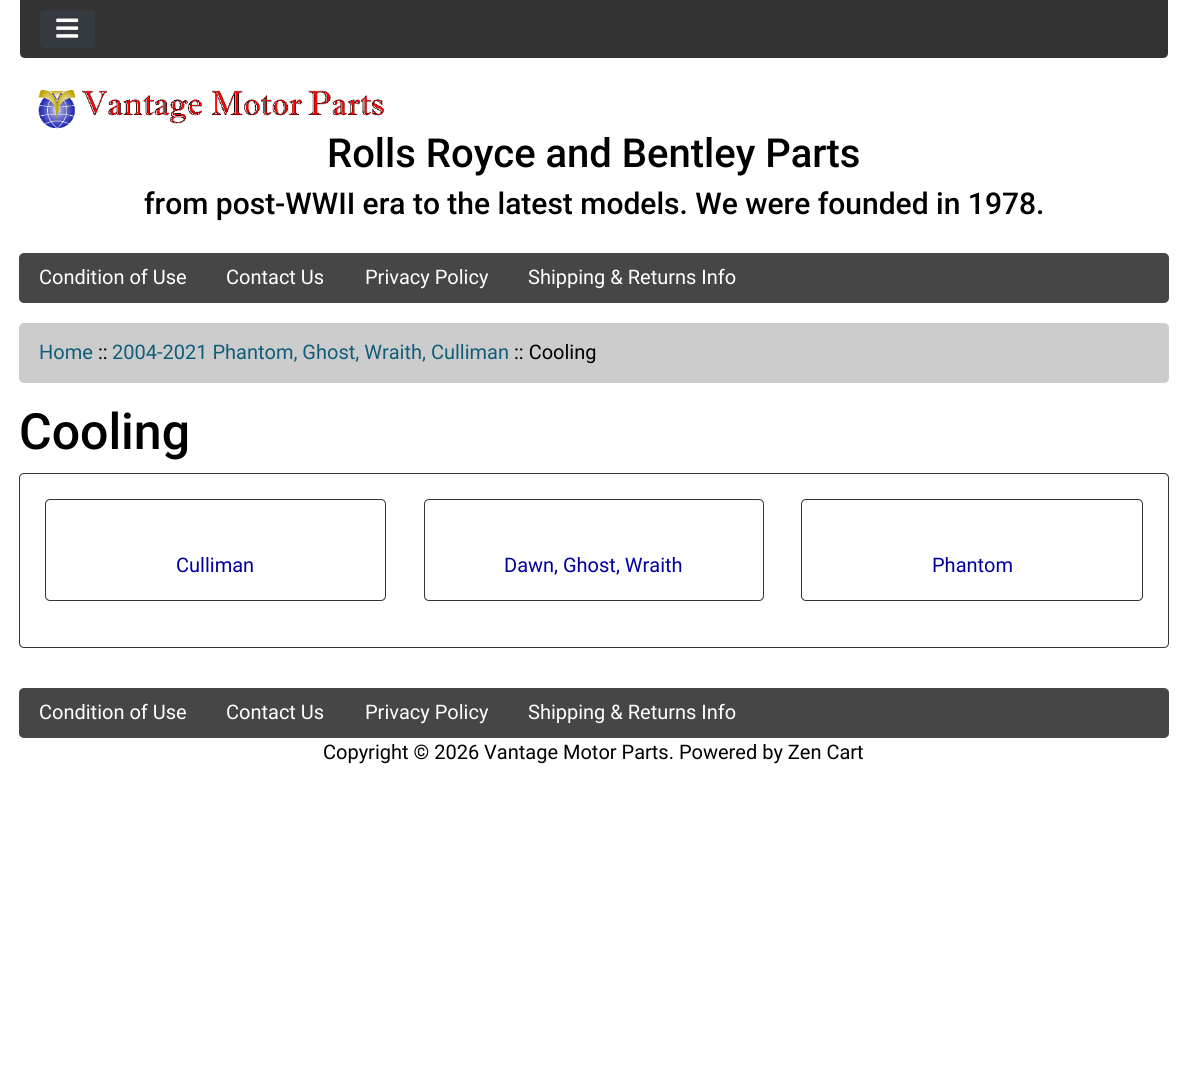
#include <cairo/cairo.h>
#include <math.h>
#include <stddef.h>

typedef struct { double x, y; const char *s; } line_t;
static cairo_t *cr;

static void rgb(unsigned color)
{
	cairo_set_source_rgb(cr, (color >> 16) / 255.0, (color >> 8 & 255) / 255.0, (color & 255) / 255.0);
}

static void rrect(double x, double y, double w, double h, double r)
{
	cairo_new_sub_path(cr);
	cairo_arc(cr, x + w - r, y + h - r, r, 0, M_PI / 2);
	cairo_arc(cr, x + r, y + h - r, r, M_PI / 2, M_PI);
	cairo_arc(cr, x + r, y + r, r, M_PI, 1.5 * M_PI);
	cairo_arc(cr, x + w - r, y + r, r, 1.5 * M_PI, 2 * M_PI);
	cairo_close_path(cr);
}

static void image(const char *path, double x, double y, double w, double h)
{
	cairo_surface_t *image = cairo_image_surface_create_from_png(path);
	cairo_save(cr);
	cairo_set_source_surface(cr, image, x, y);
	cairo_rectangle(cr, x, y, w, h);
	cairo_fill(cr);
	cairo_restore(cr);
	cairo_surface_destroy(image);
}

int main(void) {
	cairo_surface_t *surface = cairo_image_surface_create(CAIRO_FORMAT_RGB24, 1187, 1090);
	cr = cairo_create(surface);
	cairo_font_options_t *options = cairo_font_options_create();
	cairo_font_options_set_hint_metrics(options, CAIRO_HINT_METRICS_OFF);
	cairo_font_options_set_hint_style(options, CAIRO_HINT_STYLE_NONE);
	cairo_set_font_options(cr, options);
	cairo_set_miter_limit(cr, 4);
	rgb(0xffffff);
	cairo_paint(cr);
	rgb(0x333333);
	cairo_new_path(cr);
	cairo_move_to(cr, 20, 0);
	cairo_line_to(cr, 1168, 0);
	cairo_line_to(cr, 1168, 53);
	cairo_curve_to(cr, 1168, 56, 1166, 58, 1163, 58);
	cairo_line_to(cr, 25, 58);
	cairo_curve_to(cr, 22, 58, 20, 56, 20, 53);
	cairo_close_path(cr);
	cairo_fill(cr);
	rgb(0x343a40);
	rrect(40.5, 10.5, 54, 37, 4.5);
	cairo_fill_preserve(cr);
	cairo_set_line_width(cr, 1);
	cairo_stroke(cr);
	image("img/1.png", 56, 18, 23, 20);
	image("img/2.png", 38, 90, 346, 39);
	rgb(0x464646);
	rrect(19, 253, 1150, 50, 5);
	cairo_fill(cr);
	rgb(0xcccccc);
	rrect(19, 323, 1150, 60, 5);
	cairo_fill(cr);
	rrect(19.5, 473.5, 1149, 174, 4.5);
	rgb(0x343434);
	cairo_stroke(cr);
	rrect(45.5, 499.5, 340, 101, 4.5);
	cairo_stroke(cr);
	rrect(424.5, 499.5, 339, 101, 4.5);
	cairo_stroke(cr);
	rrect(801.5, 499.5, 341, 101, 4.5);
	cairo_stroke(cr);
	rgb(0x464646);
	rrect(19, 688, 1150, 50, 5);
	cairo_fill(cr);
	cairo_select_font_face(cr, "Roboto Medium", CAIRO_FONT_SLANT_NORMAL, CAIRO_FONT_WEIGHT_NORMAL);
	cairo_set_font_size(cr, 40);
	rgb(0x000000);
	cairo_move_to(cr, 327, 167);
	cairo_show_text(cr, "Rolls Royce and Bentley Parts");
	cairo_set_font_size(cr, 30);
	cairo_move_to(cr, 144, 214);
	cairo_show_text(cr, "from post-WWII era to the latest models. We were founded in 1978.");
	cairo_select_font_face(cr, "Roboto", CAIRO_FONT_SLANT_NORMAL, CAIRO_FONT_WEIGHT_NORMAL);
	cairo_set_font_size(cr, 20);
	rgb(0xffffff);
	{
		static const line_t items[] = {
			{39, 284, "Condition of Use"},
			{226, 284, "Contact Us"},
			{365, 284, "Privacy Policy"},
			{528, 284, "Shipping & Returns Info"},
		};
		for (size_t i = 0; i < sizeof items / sizeof *items; i++) {
			cairo_move_to(cr, items[i].x, items[i].y);
			cairo_show_text(cr, items[i].s);
		}
	}
	rgb(0x115d79);
	cairo_move_to(cr, 39, 359);
	cairo_show_text(cr, "Home");
	rgb(0x000000);
	cairo_move_to(cr, 98, 359);
	cairo_show_text(cr, "::");
	rgb(0x115d79);
	cairo_move_to(cr, 112, 359);
	cairo_show_text(cr, "2004-2021 Phantom, Ghost, Wraith, Culliman");
	rgb(0x000000);
	cairo_move_to(cr, 514, 359);
	cairo_show_text(cr, ":: Cooling");
	cairo_select_font_face(cr, "Roboto Medium", CAIRO_FONT_SLANT_NORMAL, CAIRO_FONT_WEIGHT_NORMAL);
	cairo_set_font_size(cr, 50);
	cairo_move_to(cr, 19, 449);
	cairo_show_text(cr, "Cooling");
	cairo_select_font_face(cr, "Roboto", CAIRO_FONT_SLANT_NORMAL, CAIRO_FONT_WEIGHT_NORMAL);
	cairo_set_font_size(cr, 20);
	rgb(0x0000a0);
	{
		static const line_t items[] = {
			{176, 572, "Culliman"},
			{504, 572, "Dawn, Ghost, Wraith"},
			{932, 572, "Phantom"},
		};
		for (size_t i = 0; i < sizeof items / sizeof *items; i++) {
			cairo_move_to(cr, items[i].x, items[i].y);
			cairo_show_text(cr, items[i].s);
		}
	}
	rgb(0xffffff);
	{
		static const line_t items[] = {
			{39, 719, "Condition of Use"},
			{226, 719, "Contact Us"},
			{365, 719, "Privacy Policy"},
			{528, 719, "Shipping & Returns Info"},
		};
		for (size_t i = 0; i < sizeof items / sizeof *items; i++) {
			cairo_move_to(cr, items[i].x, items[i].y);
			cairo_show_text(cr, items[i].s);
		}
	}
	rgb(0x000000);
	cairo_move_to(cr, 323, 759);
	cairo_show_text(cr, "Copyright © 2026 Vantage Motor Parts. Powered by Zen Cart");
	cairo_surface_write_to_png(surface, "page.png");
	cairo_font_options_destroy(options);
	cairo_destroy(cr);
	cairo_surface_destroy(surface);
	return 0;
}
